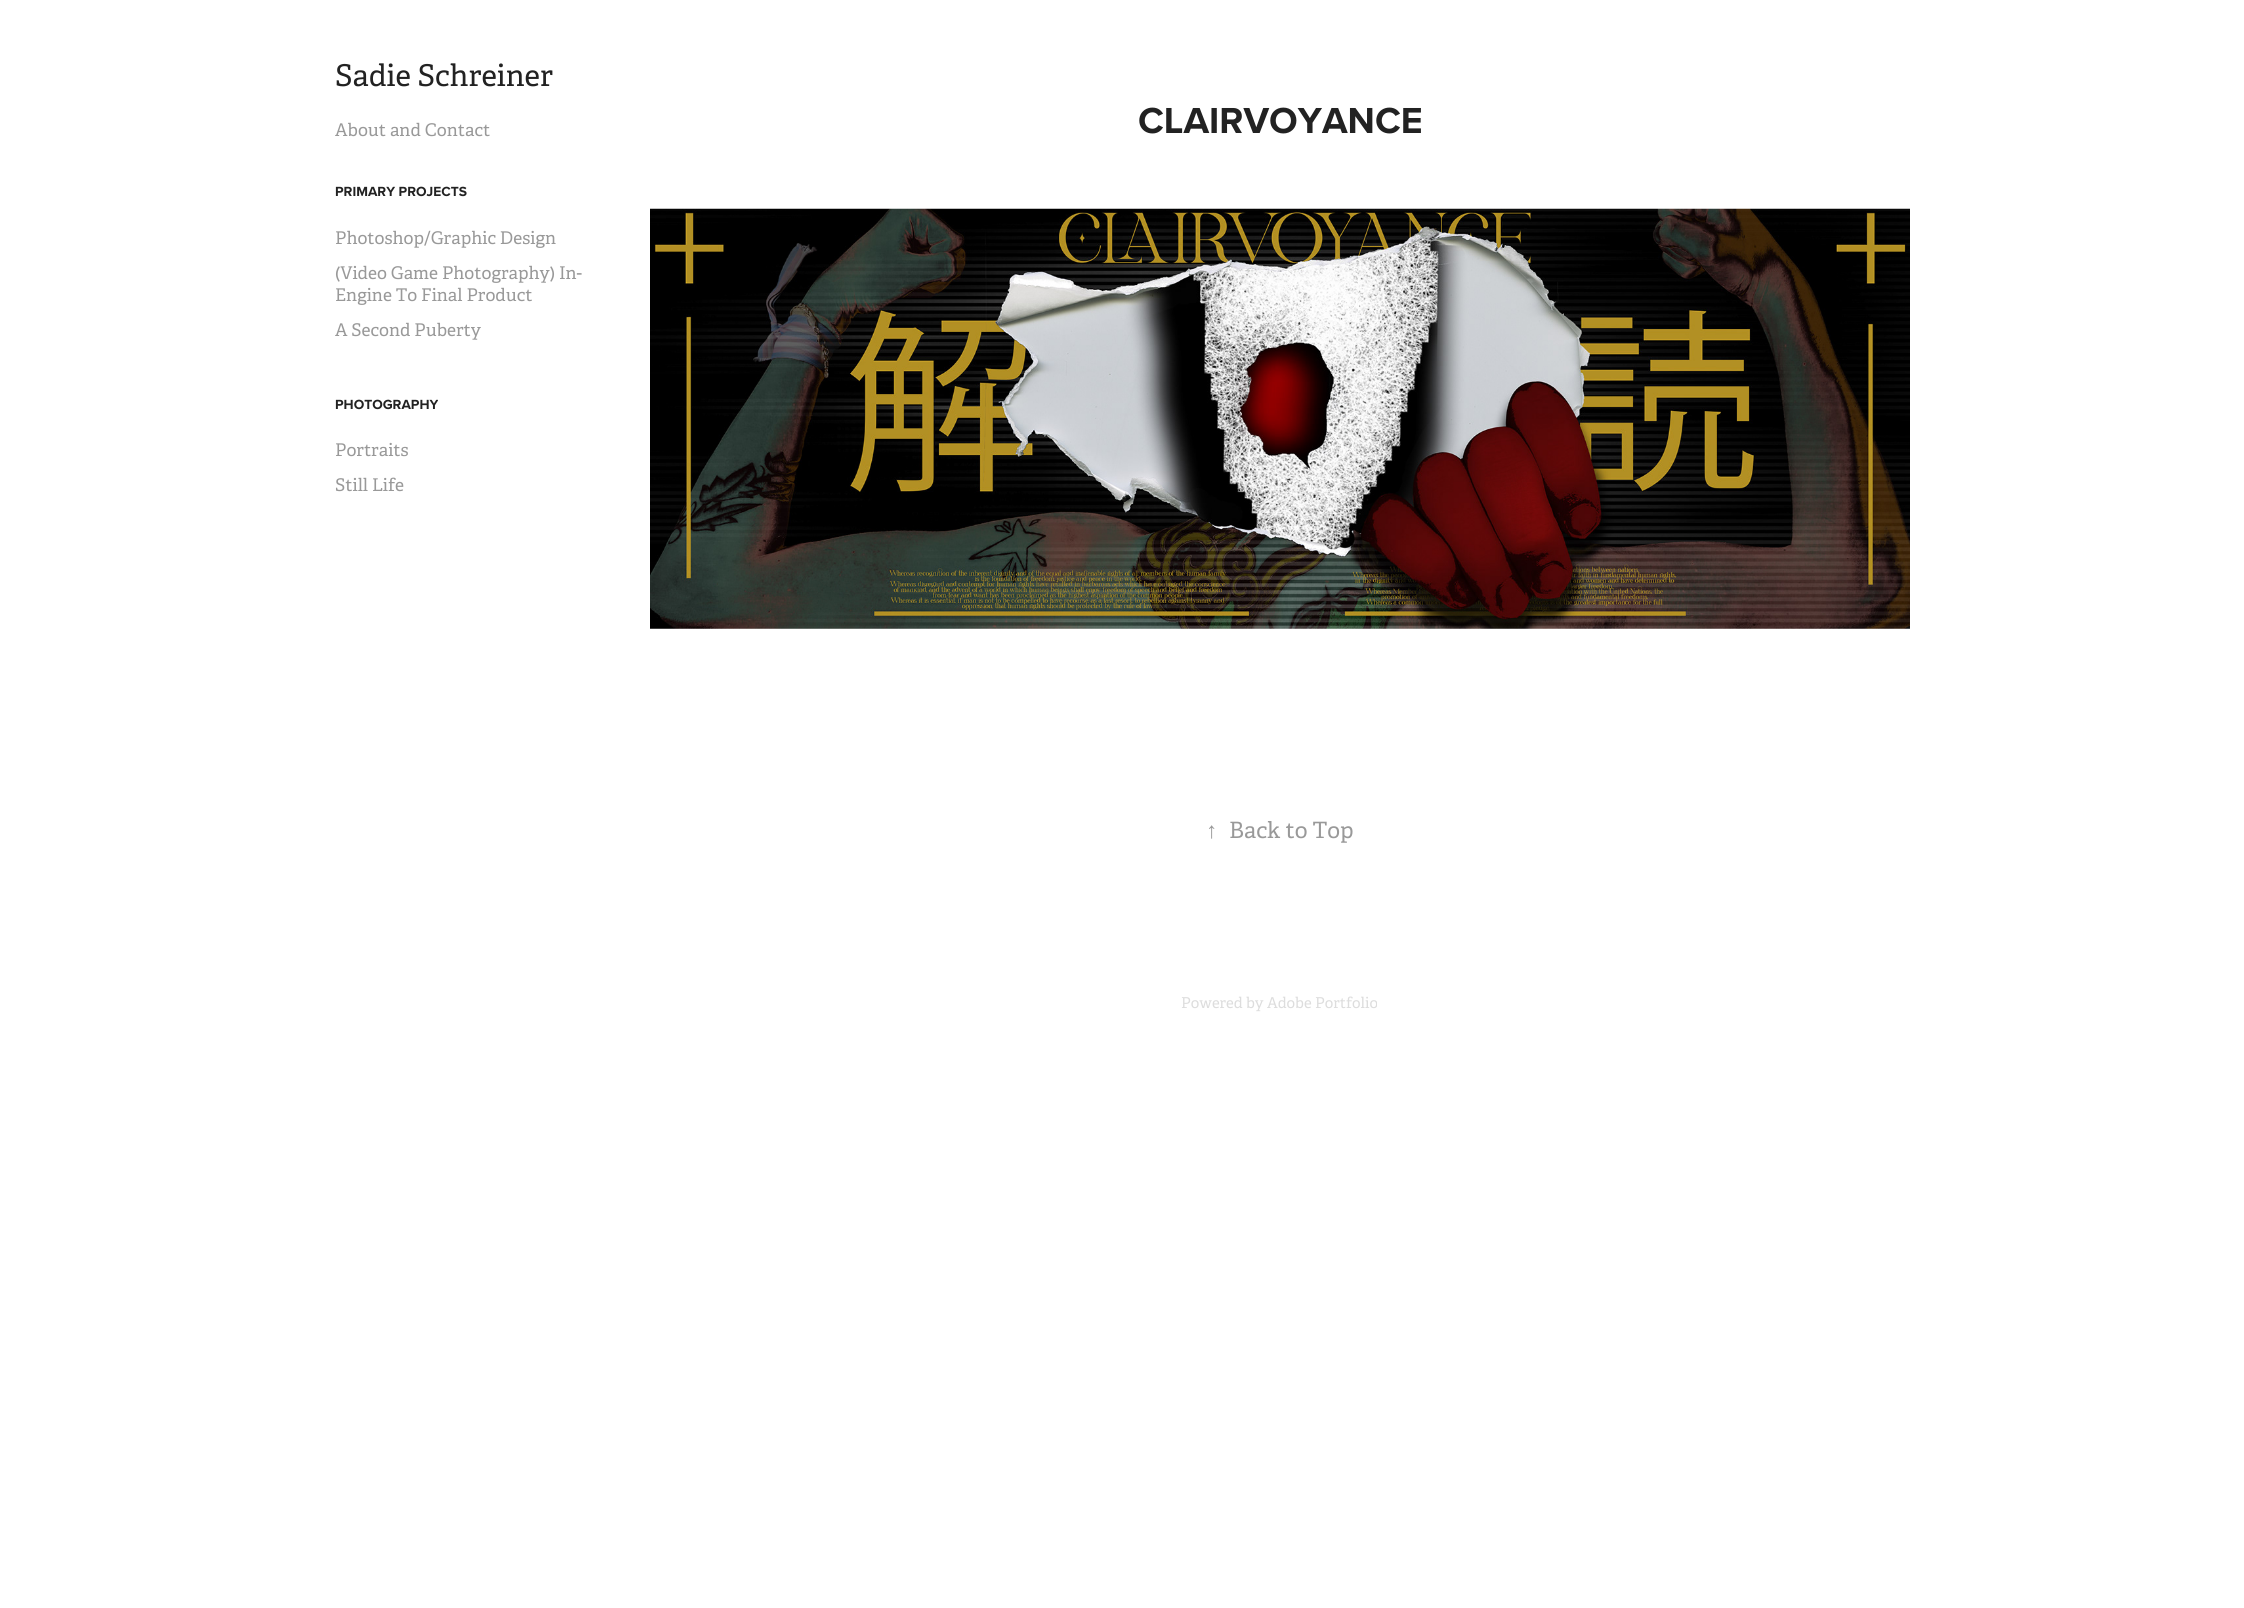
#include <cairo/cairo.h>
#include <math.h>
#include <stddef.h>

typedef struct { double x, y; const char *s; } line_t;
static cairo_t *cr;

static void rgb(unsigned color)
{
	cairo_set_source_rgb(cr, (color >> 16) / 255.0, (color >> 8 & 255) / 255.0, (color & 255) / 255.0);
}

static void image(const char *path, double x, double y, double w, double h)
{
	cairo_surface_t *image = cairo_image_surface_create_from_png(path);
	cairo_save(cr);
	cairo_set_source_surface(cr, image, x, y);
	cairo_rectangle(cr, x, y, w, h);
	cairo_fill(cr);
	cairo_restore(cr);
	cairo_surface_destroy(image);
}

int main(void) {
	cairo_surface_t *surface = cairo_image_surface_create(CAIRO_FORMAT_RGB24, 2244, 1608);
	cr = cairo_create(surface);
	cairo_font_options_t *options = cairo_font_options_create();
	cairo_font_options_set_hint_metrics(options, CAIRO_HINT_METRICS_OFF);
	cairo_font_options_set_hint_style(options, CAIRO_HINT_STYLE_NONE);
	cairo_set_font_options(cr, options);
	cairo_set_miter_limit(cr, 4);
	rgb(0xffffff);
	cairo_paint(cr);
	image("img/1.png", 650, 208, 1260, 421);
	cairo_select_font_face(cr, "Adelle", CAIRO_FONT_SLANT_NORMAL, CAIRO_FONT_WEIGHT_NORMAL);
	cairo_set_font_size(cr, 30);
	rgb(0x222222);
	cairo_move_to(cr, 335, 86);
	cairo_show_text(cr, "Sadie Schreiner");
	cairo_set_font_size(cr, 17.5);
	rgb(0x999999);
	cairo_move_to(cr, 335, 136);
	cairo_show_text(cr, "About and Contact");
	cairo_select_font_face(cr, "Proxima Nova", CAIRO_FONT_SLANT_NORMAL, CAIRO_FONT_WEIGHT_BOLD);
	cairo_set_font_size(cr, 13.75);
	rgb(0x222222);
	cairo_move_to(cr, 335, 196);
	cairo_show_text(cr, "PRIMARY PROJECTS");
	cairo_select_font_face(cr, "Adelle", CAIRO_FONT_SLANT_NORMAL, CAIRO_FONT_WEIGHT_NORMAL);
	cairo_set_font_size(cr, 17.5);
	rgb(0x999999);
	{
		static const line_t items[] = {
			{335, 244, "Photoshop/Graphic Design"},
			{335, 279, "(Video Game Photography) In-"},
			{335, 301, "Engine To Final Product"},
			{335, 336, "A Second Puberty"},
		};
		for (size_t i = 0; i < sizeof items / sizeof *items; i++) {
			cairo_move_to(cr, items[i].x, items[i].y);
			cairo_show_text(cr, items[i].s);
		}
	}
	cairo_select_font_face(cr, "Proxima Nova", CAIRO_FONT_SLANT_NORMAL, CAIRO_FONT_WEIGHT_BOLD);
	cairo_set_font_size(cr, 13.75);
	rgb(0x222222);
	cairo_move_to(cr, 335, 409);
	cairo_show_text(cr, "PHOTOGRAPHY");
	cairo_select_font_face(cr, "Adelle", CAIRO_FONT_SLANT_NORMAL, CAIRO_FONT_WEIGHT_NORMAL);
	cairo_set_font_size(cr, 17.5);
	rgb(0x999999);
	cairo_move_to(cr, 335, 456);
	cairo_show_text(cr, "Portraits");
	cairo_move_to(cr, 335, 491);
	cairo_show_text(cr, "Still Life");
	cairo_select_font_face(cr, "Proxima Nova", CAIRO_FONT_SLANT_NORMAL, CAIRO_FONT_WEIGHT_BOLD);
	cairo_set_font_size(cr, 37.5);
	rgb(0x222222);
	cairo_move_to(cr, 1138, 133);
	cairo_show_text(cr, "CLAIRVOYANCE");
	cairo_select_font_face(cr, "Liberation Serif", CAIRO_FONT_SLANT_NORMAL, CAIRO_FONT_WEIGHT_NORMAL);
	cairo_set_font_size(cr, 22.5);
	rgb(0x999999);
	cairo_move_to(cr, 1206, 838);
	cairo_show_text(cr, "↑");
	cairo_select_font_face(cr, "Adelle", CAIRO_FONT_SLANT_NORMAL, CAIRO_FONT_WEIGHT_NORMAL);
	cairo_move_to(cr, 1229, 838);
	cairo_show_text(cr, "Back to Top");
	cairo_set_font_size(cr, 15);
	rgb(0xdddddd);
	cairo_move_to(cr, 1181, 1008);
	cairo_show_text(cr, "Powered by Adobe Portfolio");
	cairo_surface_write_to_png(surface, "page.png");
	cairo_font_options_destroy(options);
	cairo_destroy(cr);
	cairo_surface_destroy(surface);
	return 0;
}
